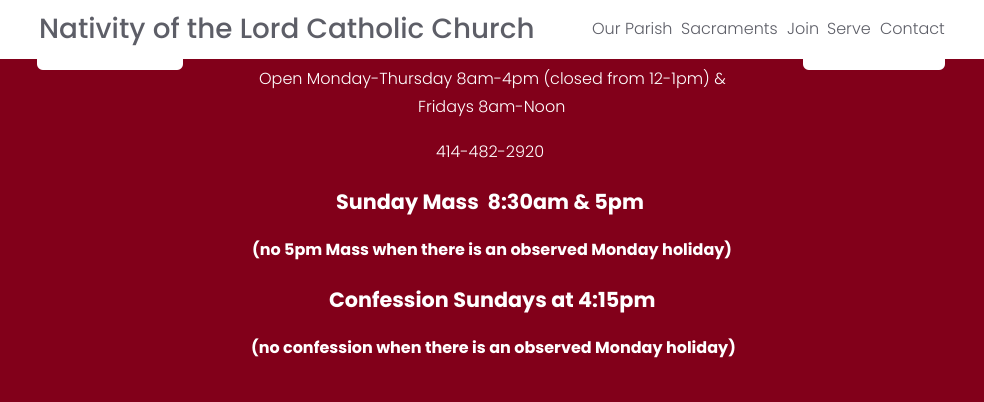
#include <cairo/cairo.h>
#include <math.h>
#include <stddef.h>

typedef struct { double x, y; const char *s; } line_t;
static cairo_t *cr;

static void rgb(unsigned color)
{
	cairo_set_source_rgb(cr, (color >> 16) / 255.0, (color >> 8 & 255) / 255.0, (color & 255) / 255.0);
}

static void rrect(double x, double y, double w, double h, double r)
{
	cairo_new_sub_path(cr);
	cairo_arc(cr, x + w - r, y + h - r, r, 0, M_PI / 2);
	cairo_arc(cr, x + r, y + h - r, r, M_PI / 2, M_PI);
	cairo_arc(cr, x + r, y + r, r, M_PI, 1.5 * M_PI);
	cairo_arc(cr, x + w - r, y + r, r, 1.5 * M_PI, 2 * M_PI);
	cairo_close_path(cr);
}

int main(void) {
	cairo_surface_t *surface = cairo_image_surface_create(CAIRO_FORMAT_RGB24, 984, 402);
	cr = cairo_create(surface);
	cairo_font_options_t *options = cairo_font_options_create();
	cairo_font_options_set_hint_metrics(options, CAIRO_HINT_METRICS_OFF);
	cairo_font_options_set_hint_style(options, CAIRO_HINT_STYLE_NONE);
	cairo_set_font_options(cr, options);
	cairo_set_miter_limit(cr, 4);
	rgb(0x82001a);
	cairo_paint(cr);
	rgb(0xffffff);
	rrect(37, 4, 146, 66, 6);
	cairo_fill(cr);
	rrect(803, 4, 142, 66, 6);
	cairo_fill(cr);
	cairo_rectangle(cr, 0, 0, 984, 59);
	cairo_fill(cr);
	cairo_select_font_face(cr, "Poppins Medium", CAIRO_FONT_SLANT_NORMAL, CAIRO_FONT_WEIGHT_NORMAL);
	cairo_set_font_size(cr, 27.8);
	rgb(0x5d5e67);
	cairo_move_to(cr, 39, 38);
	cairo_show_text(cr, "Nativity of the Lord Catholic Church");
	cairo_select_font_face(cr, "Poppins Light", CAIRO_FONT_SLANT_NORMAL, CAIRO_FONT_WEIGHT_NORMAL);
	cairo_set_font_size(cr, 16);
	{
		static const line_t items[] = {
			{592, 34, "Our Parish"},
			{681, 34, "Sacraments"},
			{787, 34, "Join"},
			{827, 34, "Serve"},
			{880, 34, "Contact"},
		};
		for (size_t i = 0; i < sizeof items / sizeof *items; i++) {
			cairo_move_to(cr, items[i].x, items[i].y);
			cairo_show_text(cr, items[i].s);
		}
	}
	rgb(0xffffff);
	{
		static const line_t items[] = {
			{259, 84, "Open Monday-Thursday 8am-4pm (closed from 12-1pm) &"},
			{418, 112, "Fridays 8am-Noon"},
			{436, 157, "414-482-2920"},
		};
		for (size_t i = 0; i < sizeof items / sizeof *items; i++) {
			cairo_move_to(cr, items[i].x, items[i].y);
			cairo_show_text(cr, items[i].s);
		}
	}
	cairo_select_font_face(cr, "Poppins", CAIRO_FONT_SLANT_NORMAL, CAIRO_FONT_WEIGHT_BOLD);
	cairo_set_font_size(cr, 20.75);
	cairo_move_to(cr, 336, 209);
	cairo_show_text(cr, "Sunday Mass  8:30am & 5pm");
	cairo_set_font_size(cr, 16);
	cairo_move_to(cr, 252, 255);
	cairo_show_text(cr, "(no 5pm Mass when there is an observed Monday holiday)");
	cairo_set_font_size(cr, 20.75);
	cairo_move_to(cr, 329, 307);
	cairo_show_text(cr, "Confession Sundays at 4:15pm");
	cairo_set_font_size(cr, 16);
	cairo_move_to(cr, 251, 353);
	cairo_show_text(cr, "(no confession when there is an observed Monday holiday)");
	cairo_surface_write_to_png(surface, "page.png");
	cairo_font_options_destroy(options);
	cairo_destroy(cr);
	cairo_surface_destroy(surface);
	return 0;
}
